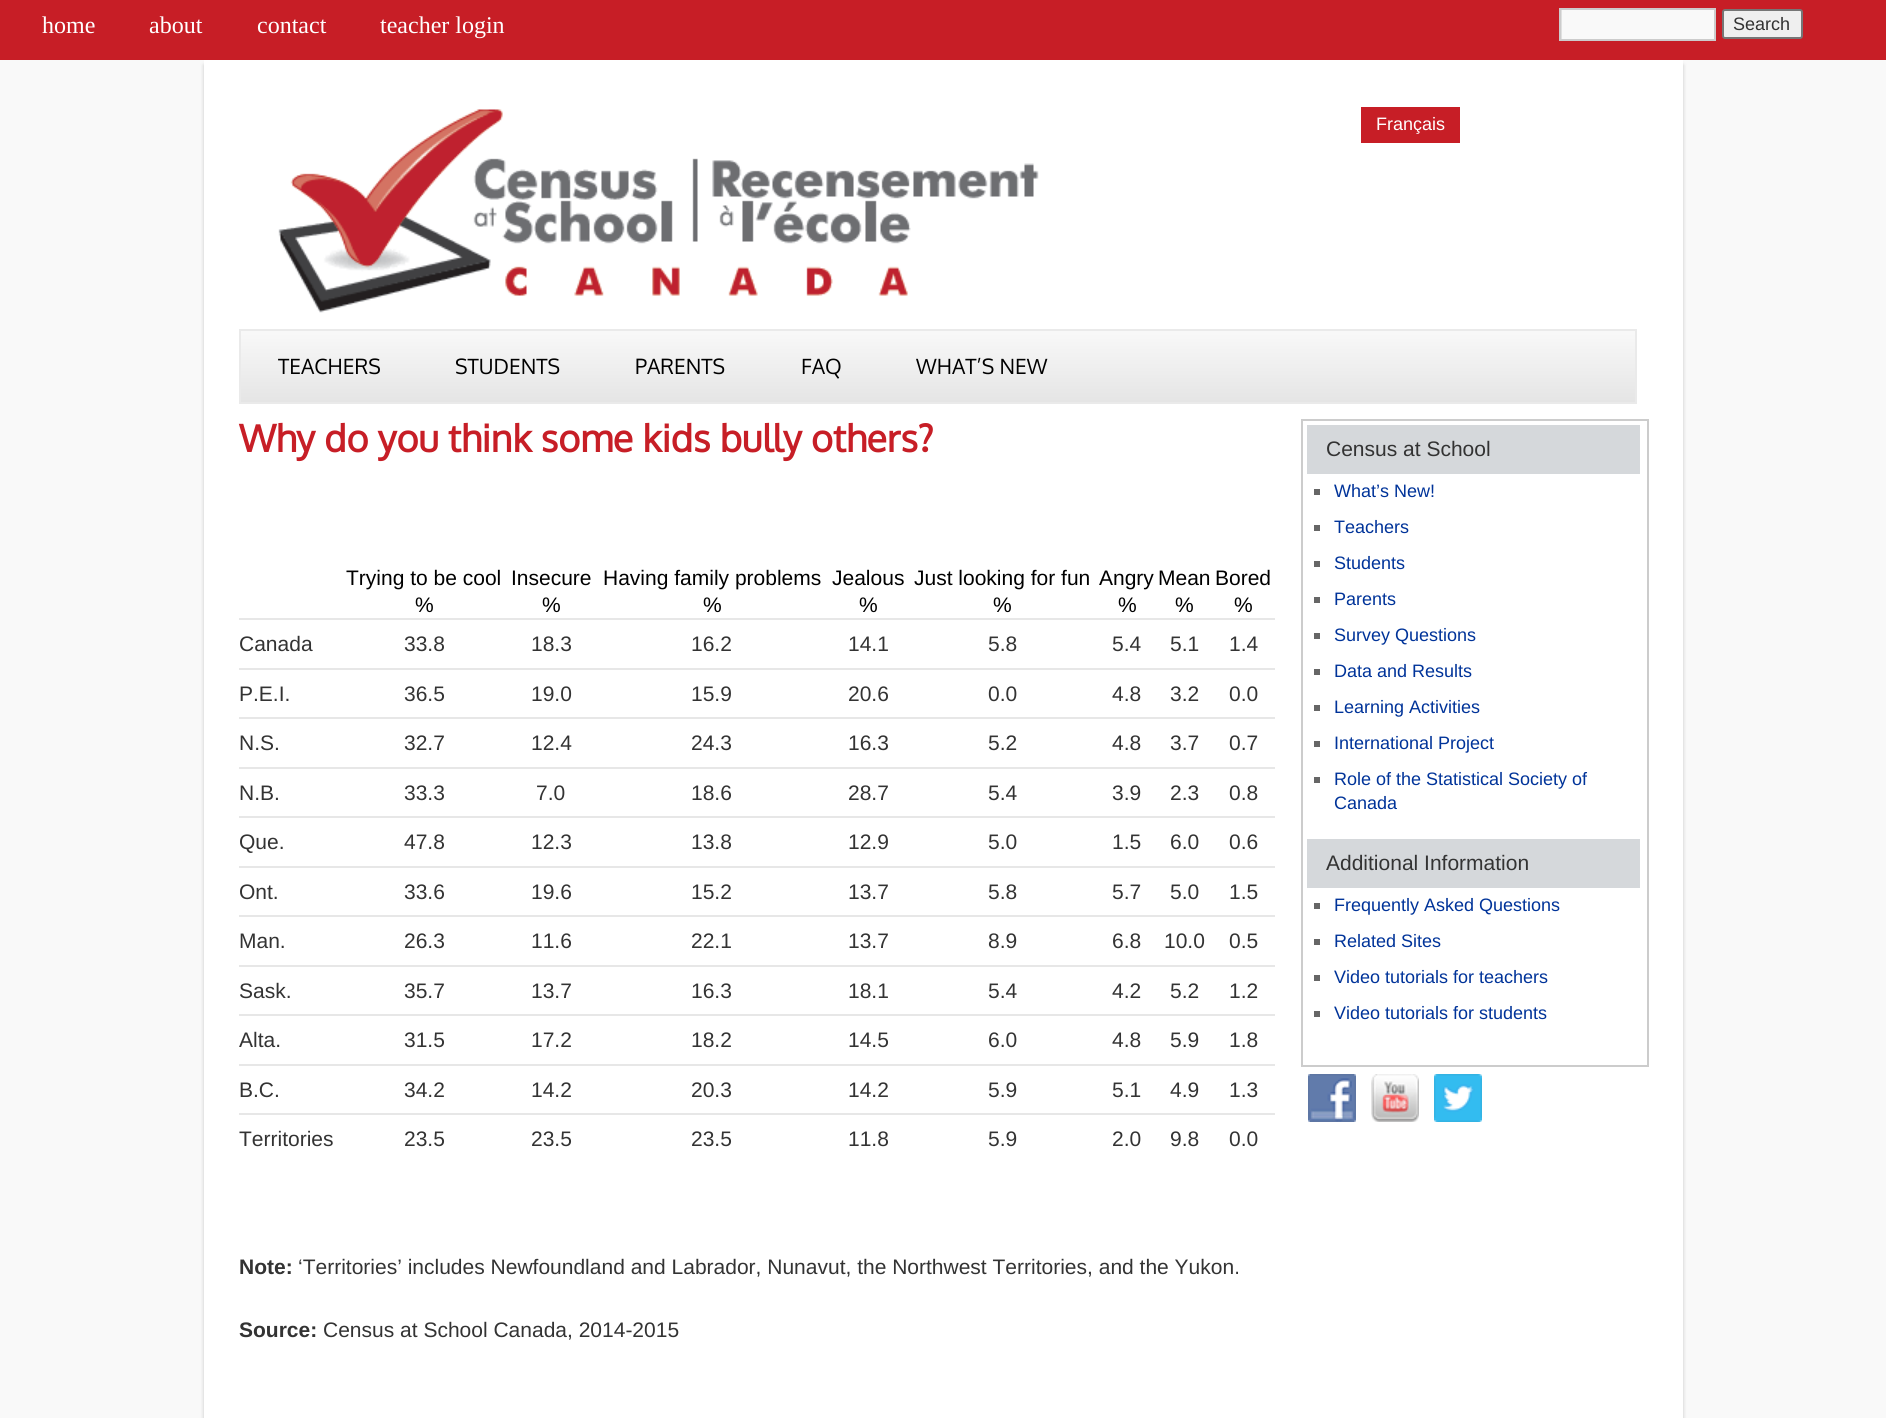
#include <cairo/cairo.h>
#include <math.h>
#include <stddef.h>

typedef struct { double x, y; const char *s; } line_t;
typedef struct { double x, y, w, h; unsigned color; } box_t;
static cairo_t *cr;

static void rgb(unsigned color)
{
	cairo_set_source_rgb(cr, (color >> 16) / 255.0, (color >> 8 & 255) / 255.0, (color & 255) / 255.0);
}

static void rrect(double x, double y, double w, double h, double r)
{
	cairo_new_sub_path(cr);
	cairo_arc(cr, x + w - r, y + h - r, r, 0, M_PI / 2);
	cairo_arc(cr, x + r, y + h - r, r, M_PI / 2, M_PI);
	cairo_arc(cr, x + r, y + r, r, M_PI, 1.5 * M_PI);
	cairo_arc(cr, x + w - r, y + r, r, 1.5 * M_PI, 2 * M_PI);
	cairo_close_path(cr);
}

static void soft_shadow(double x, double y, double w, double h, double r, double blur, double alpha)
{
	cairo_push_group_with_content(cr, CAIRO_CONTENT_ALPHA);
	cairo_set_operator(cr, CAIRO_OPERATOR_SOURCE);
	for (int i = 15; i >= -15 && fmin(w, h) + blur * i / 3 > 0; i -= 2) {
		double e = blur * i / 6;
		cairo_set_source_rgba(cr, 0, 0, 0, alpha * erfc((i - 1) / 8.5) / 2);
		rrect(x - e, y - e, w + 2 * e, h + 2 * e, fmax(0, fmin(r + e + blur * .6, fmin(w, h) / 2 + e)));
		cairo_fill(cr);
	}
	cairo_pattern_t *soft = cairo_pop_group(cr);
	cairo_mask(cr, soft);
	cairo_pattern_destroy(soft);
}

static void image(const char *path, double x, double y, double w, double h)
{
	cairo_surface_t *image = cairo_image_surface_create_from_png(path);
	cairo_save(cr);
	cairo_set_source_surface(cr, image, x, y);
	cairo_rectangle(cr, x, y, w, h);
	cairo_fill(cr);
	cairo_restore(cr);
	cairo_surface_destroy(image);
}

int main(void) {
	cairo_surface_t *surface = cairo_image_surface_create(CAIRO_FORMAT_RGB24, 1886, 1418);
	cr = cairo_create(surface);
	cairo_font_options_t *options = cairo_font_options_create();
	cairo_font_options_set_hint_metrics(options, CAIRO_HINT_METRICS_OFF);
	cairo_font_options_set_hint_style(options, CAIRO_HINT_STYLE_NONE);
	cairo_set_font_options(cr, options);
	cairo_set_miter_limit(cr, 4);
	cairo_pattern_t *gradient;
	rgb(0xf9f9f9);
	cairo_paint(cr);
	rgb(0xc71e26);
	cairo_rectangle(cr, 0, 0, 1886, 60);
	cairo_fill(cr);
	rgb(0xf9f9f9);
	cairo_rectangle(cr, 1562, 10, 152, 29);
	cairo_fill(cr);
	cairo_save(cr);
	cairo_rectangle(cr, 1560, 9, 155, 30);
	cairo_clip(cr);
	rgb(0xe0e0e0);
	cairo_set_fill_rule(cr, CAIRO_FILL_RULE_EVEN_ODD);
	cairo_new_path(cr);
	cairo_move_to(cr, 1412, -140);
	cairo_line_to(cr, 1863, -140);
	cairo_line_to(cr, 1863, 188);
	cairo_line_to(cr, 1412, 188);
	cairo_close_path(cr);
	cairo_move_to(cr, 1562, 10);
	cairo_line_to(cr, 1716, 10);
	cairo_line_to(cr, 1716, 40);
	cairo_line_to(cr, 1562, 40);
	cairo_close_path(cr);
	cairo_fill(cr);
	cairo_restore(cr);
	cairo_rectangle(cr, 1560, 9, 155, 31);
	rgb(0xcccccc);
	cairo_stroke(cr);
	rgb(0xefefef);
	rrect(1723, 10, 79, 28, 2);
	cairo_fill_preserve(cr);
	rgb(0x767676);
	cairo_stroke(cr);
	rgb(0x000000);
	soft_shadow(204, 65, 1479, 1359, 0, 2, 0.2);
	rgb(0xffffff);
	cairo_rectangle(cr, 204, 60, 1479, 1358);
	cairo_fill(cr);
	image("img/1.png", 278, 109, 761, 204);
	rgb(0xc71e26);
	cairo_rectangle(cr, 1361, 107, 99, 36);
	cairo_fill(cr);
	gradient = cairo_pattern_create_linear(938, 330, 938, 402);
	cairo_pattern_add_color_stop_rgba(gradient, 0, 0.976, 0.976, 0.976, 1);
	cairo_pattern_add_color_stop_rgba(gradient, 1, 0.898, 0.898, 0.898, 1);
	cairo_set_source(cr, gradient);
	cairo_pattern_destroy(gradient);
	cairo_rectangle(cr, 241, 331, 1394, 71);
	cairo_fill(cr);
	cairo_rectangle(cr, 240, 330, 1396, 73);
	rgb(0xeaeaea);
	cairo_stroke(cr);
	{
		static const box_t items[] = {
			{239, 618, 1036, 2, 0xe7e7e7},
			{239, 668, 1036, 2, 0xe7e7e7},
			{239, 717, 1036, 2, 0xe7e7e7},
			{239, 767, 1036, 2, 0xe7e7e7},
			{239, 816, 1036, 2, 0xe7e7e7},
			{239, 866, 1036, 2, 0xe7e7e7},
			{239, 915, 1036, 2, 0xe7e7e7},
			{239, 965, 1036, 2, 0xe7e7e7},
			{239, 1014, 1036, 2, 0xe7e7e7},
			{239, 1064, 1036, 2, 0xe7e7e7},
			{239, 1113, 1036, 2, 0xe7e7e7},
		};
		for (size_t i = 0; i < sizeof items / sizeof *items; i++) {
			rgb(items[i].color);
			cairo_rectangle(cr, items[i].x, items[i].y, items[i].w, items[i].h);
			cairo_fill(cr);
		}
	}
	cairo_rectangle(cr, 1302, 420, 346, 646);
	rgb(0xcccccc);
	cairo_stroke(cr);
	{
		static const box_t items[] = {
			{1307, 425, 333, 49, 0xd5d8db},
			{1314, 489, 6, 6, 0x666666},
			{1314, 525, 6, 6, 0x666666},
			{1314, 561, 6, 6, 0x666666},
			{1314, 597, 6, 6, 0x666666},
			{1314, 633, 6, 6, 0x666666},
			{1314, 669, 6, 6, 0x666666},
			{1314, 705, 6, 6, 0x666666},
			{1314, 741, 6, 6, 0x666666},
			{1314, 777, 6, 6, 0x666666},
			{1307, 839, 333, 49, 0xd5d8db},
			{1314, 903, 6, 6, 0x666666},
			{1314, 939, 6, 6, 0x666666},
			{1314, 975, 6, 6, 0x666666},
			{1314, 1011, 6, 6, 0x666666},
		};
		for (size_t i = 0; i < sizeof items / sizeof *items; i++) {
			rgb(items[i].color);
			cairo_rectangle(cr, items[i].x, items[i].y, items[i].w, items[i].h);
			cairo_fill(cr);
		}
	}
	image("img/2.png", 1308, 1074, 48, 48);
	image("img/3.png", 1371, 1074, 48, 48);
	image("img/4.png", 1434, 1074, 48, 48);
	cairo_select_font_face(cr, "Liberation Serif", CAIRO_FONT_SLANT_NORMAL, CAIRO_FONT_WEIGHT_NORMAL);
	cairo_set_font_size(cr, 24);
	rgb(0xffffff);
	{
		static const line_t items[] = {
			{42, 33, "home"},
			{149, 33, "about"},
			{257, 33, "contact"},
			{380, 33, "teacher login"},
		};
		for (size_t i = 0; i < sizeof items / sizeof *items; i++) {
			cairo_move_to(cr, items[i].x, items[i].y);
			cairo_show_text(cr, items[i].s);
		}
	}
	cairo_select_font_face(cr, "Liberation Sans", CAIRO_FONT_SLANT_NORMAL, CAIRO_FONT_WEIGHT_NORMAL);
	cairo_set_font_size(cr, 18);
	rgb(0x333333);
	cairo_move_to(cr, 1733, 30);
	cairo_show_text(cr, "Search");
	rgb(0xffffff);
	cairo_move_to(cr, 1376, 130);
	cairo_show_text(cr, "Français");
	cairo_select_font_face(cr, "Oxygen", CAIRO_FONT_SLANT_NORMAL, CAIRO_FONT_WEIGHT_NORMAL);
	cairo_set_font_size(cr, 21);
	rgb(0x000000);
	{
		static const line_t items[] = {
			{278, 374, "TEACHERS"},
			{455, 374, "STUDENTS"},
			{635, 374, "PARENTS"},
			{801, 374, "FAQ"},
			{916, 374, "WHAT’S NEW"},
		};
		for (size_t i = 0; i < sizeof items / sizeof *items; i++) {
			cairo_move_to(cr, items[i].x, items[i].y);
			cairo_show_text(cr, items[i].s);
		}
	}
	cairo_select_font_face(cr, "Oxygen", CAIRO_FONT_SLANT_NORMAL, CAIRO_FONT_WEIGHT_BOLD);
	cairo_set_font_size(cr, 37.5);
	rgb(0xc71e26);
	cairo_move_to(cr, 239, 452);
	cairo_show_text(cr, "Why do you think some kids bully others?");
	cairo_select_font_face(cr, "Liberation Sans", CAIRO_FONT_SLANT_NORMAL, CAIRO_FONT_WEIGHT_NORMAL);
	cairo_set_font_size(cr, 21);
	rgb(0x000000);
	{
		static const line_t items[] = {
			{346, 585, "Trying to be cool"},
			{511, 585, "Insecure"},
			{603, 585, "Having family problems"},
			{832, 585, "Jealous"},
			{914, 585, "Just looking for fun"},
			{1099, 585, "Angry"},
			{1158, 585, "Mean"},
			{1215, 585, "Bored"},
			{415, 612, "%"},
			{542, 612, "%"},
			{703, 612, "%"},
			{859, 612, "%"},
			{993, 612, "%"},
			{1118, 612, "%"},
			{1175, 612, "%"},
			{1234, 612, "%"},
		};
		for (size_t i = 0; i < sizeof items / sizeof *items; i++) {
			cairo_move_to(cr, items[i].x, items[i].y);
			cairo_show_text(cr, items[i].s);
		}
	}
	rgb(0x333333);
	{
		static const line_t items[] = {
			{239, 651, "Canada"},
			{404, 651, "33.8"},
			{531, 651, "18.3"},
			{691, 651, "16.2"},
			{848, 651, "14.1"},
			{988, 651, "5.8"},
			{1112, 651, "5.4"},
			{1170, 651, "5.1"},
			{1229, 651, "1.4"},
			{239, 701, "P.E.I."},
			{404, 701, "36.5"},
			{531, 701, "19.0"},
			{691, 701, "15.9"},
			{848, 701, "20.6"},
			{988, 701, "0.0"},
			{1112, 701, "4.8"},
			{1170, 701, "3.2"},
			{1229, 701, "0.0"},
			{239, 750, "N.S."},
			{404, 750, "32.7"},
			{531, 750, "12.4"},
			{691, 750, "24.3"},
			{848, 750, "16.3"},
			{988, 750, "5.2"},
			{1112, 750, "4.8"},
			{1170, 750, "3.7"},
			{1229, 750, "0.7"},
			{239, 800, "N.B."},
			{404, 800, "33.3"},
			{536, 800, "7.0"},
			{691, 800, "18.6"},
			{848, 800, "28.7"},
			{988, 800, "5.4"},
			{1112, 800, "3.9"},
			{1170, 800, "2.3"},
			{1229, 800, "0.8"},
			{239, 849, "Que."},
			{404, 849, "47.8"},
			{531, 849, "12.3"},
			{691, 849, "13.8"},
			{848, 849, "12.9"},
			{988, 849, "5.0"},
			{1112, 849, "1.5"},
			{1170, 849, "6.0"},
			{1229, 849, "0.6"},
			{239, 899, "Ont."},
			{404, 899, "33.6"},
			{531, 899, "19.6"},
			{691, 899, "15.2"},
			{848, 899, "13.7"},
			{988, 899, "5.8"},
			{1112, 899, "5.7"},
			{1170, 899, "5.0"},
			{1229, 899, "1.5"},
			{239, 948, "Man."},
			{404, 948, "26.3"},
			{531, 948, "11.6"},
			{691, 948, "22.1"},
			{848, 948, "13.7"},
			{988, 948, "8.9"},
			{1112, 948, "6.8"},
			{1164, 948, "10.0"},
			{1229, 948, "0.5"},
			{239, 998, "Sask."},
			{404, 998, "35.7"},
			{531, 998, "13.7"},
			{691, 998, "16.3"},
			{848, 998, "18.1"},
			{988, 998, "5.4"},
			{1112, 998, "4.2"},
			{1170, 998, "5.2"},
			{1229, 998, "1.2"},
			{239, 1047, "Alta."},
			{404, 1047, "31.5"},
			{531, 1047, "17.2"},
			{691, 1047, "18.2"},
			{848, 1047, "14.5"},
			{988, 1047, "6.0"},
			{1112, 1047, "4.8"},
			{1170, 1047, "5.9"},
			{1229, 1047, "1.8"},
			{239, 1097, "B.C."},
			{404, 1097, "34.2"},
			{531, 1097, "14.2"},
			{691, 1097, "20.3"},
			{848, 1097, "14.2"},
			{988, 1097, "5.9"},
			{1112, 1097, "5.1"},
			{1170, 1097, "4.9"},
			{1229, 1097, "1.3"},
			{239, 1146, "Territories"},
			{404, 1146, "23.5"},
			{531, 1146, "23.5"},
			{691, 1146, "23.5"},
			{848, 1146, "11.8"},
			{988, 1146, "5.9"},
			{1112, 1146, "2.0"},
			{1170, 1146, "9.8"},
			{1229, 1146, "0.0"},
		};
		for (size_t i = 0; i < sizeof items / sizeof *items; i++) {
			cairo_move_to(cr, items[i].x, items[i].y);
			cairo_show_text(cr, items[i].s);
		}
	}
	cairo_select_font_face(cr, "Liberation Sans", CAIRO_FONT_SLANT_NORMAL, CAIRO_FONT_WEIGHT_BOLD);
	cairo_move_to(cr, 239, 1274);
	cairo_show_text(cr, "Note:");
	cairo_select_font_face(cr, "Liberation Sans", CAIRO_FONT_SLANT_NORMAL, CAIRO_FONT_WEIGHT_NORMAL);
	cairo_move_to(cr, 298, 1274);
	cairo_show_text(cr, "‘Territories’ includes Newfoundland and Labrador, Nunavut, the Northwest Territories, and the Yukon.");
	cairo_select_font_face(cr, "Liberation Sans", CAIRO_FONT_SLANT_NORMAL, CAIRO_FONT_WEIGHT_BOLD);
	cairo_move_to(cr, 239, 1337);
	cairo_show_text(cr, "Source:");
	cairo_select_font_face(cr, "Liberation Sans", CAIRO_FONT_SLANT_NORMAL, CAIRO_FONT_WEIGHT_NORMAL);
	cairo_move_to(cr, 323, 1337);
	cairo_show_text(cr, "Census at School Canada, 2014-2015");
	cairo_move_to(cr, 1326, 456);
	cairo_show_text(cr, "Census at School");
	cairo_set_font_size(cr, 18);
	rgb(0x003399);
	{
		static const line_t items[] = {
			{1334, 497, "What’s New!"},
			{1334, 533, "Teachers"},
			{1334, 569, "Students"},
			{1334, 605, "Parents"},
			{1334, 641, "Survey Questions"},
			{1334, 677, "Data and Results"},
			{1334, 713, "Learning Activities"},
			{1334, 749, "International Project"},
			{1334, 785, "Role of the Statistical Society of"},
			{1334, 809, "Canada"},
		};
		for (size_t i = 0; i < sizeof items / sizeof *items; i++) {
			cairo_move_to(cr, items[i].x, items[i].y);
			cairo_show_text(cr, items[i].s);
		}
	}
	cairo_set_font_size(cr, 21);
	rgb(0x333333);
	cairo_move_to(cr, 1326, 870);
	cairo_show_text(cr, "Additional Information");
	cairo_set_font_size(cr, 18);
	rgb(0x003399);
	{
		static const line_t items[] = {
			{1334, 911, "Frequently Asked Questions"},
			{1334, 947, "Related Sites"},
			{1334, 983, "Video tutorials for teachers"},
			{1334, 1019, "Video tutorials for students"},
		};
		for (size_t i = 0; i < sizeof items / sizeof *items; i++) {
			cairo_move_to(cr, items[i].x, items[i].y);
			cairo_show_text(cr, items[i].s);
		}
	}
	cairo_surface_write_to_png(surface, "page.png");
	cairo_font_options_destroy(options);
	cairo_destroy(cr);
	cairo_surface_destroy(surface);
	return 0;
}
